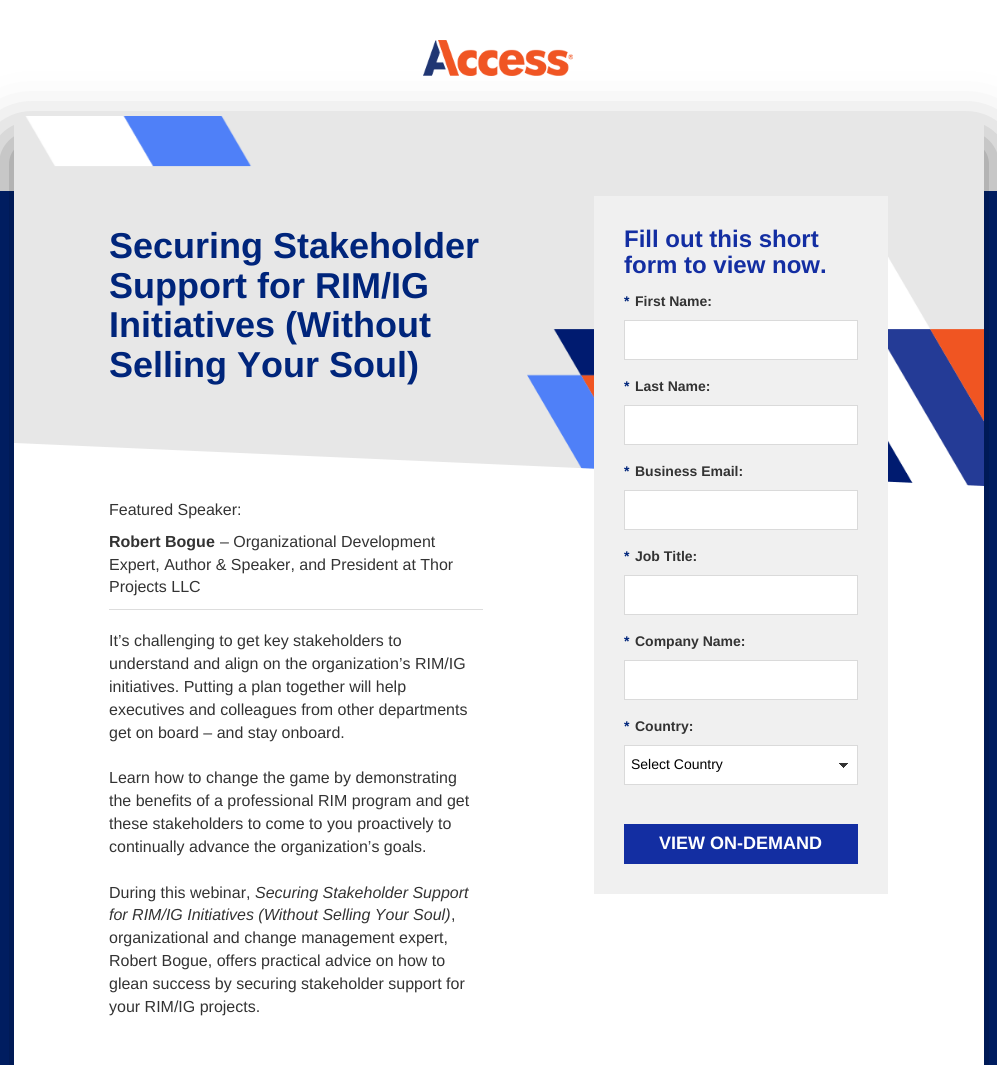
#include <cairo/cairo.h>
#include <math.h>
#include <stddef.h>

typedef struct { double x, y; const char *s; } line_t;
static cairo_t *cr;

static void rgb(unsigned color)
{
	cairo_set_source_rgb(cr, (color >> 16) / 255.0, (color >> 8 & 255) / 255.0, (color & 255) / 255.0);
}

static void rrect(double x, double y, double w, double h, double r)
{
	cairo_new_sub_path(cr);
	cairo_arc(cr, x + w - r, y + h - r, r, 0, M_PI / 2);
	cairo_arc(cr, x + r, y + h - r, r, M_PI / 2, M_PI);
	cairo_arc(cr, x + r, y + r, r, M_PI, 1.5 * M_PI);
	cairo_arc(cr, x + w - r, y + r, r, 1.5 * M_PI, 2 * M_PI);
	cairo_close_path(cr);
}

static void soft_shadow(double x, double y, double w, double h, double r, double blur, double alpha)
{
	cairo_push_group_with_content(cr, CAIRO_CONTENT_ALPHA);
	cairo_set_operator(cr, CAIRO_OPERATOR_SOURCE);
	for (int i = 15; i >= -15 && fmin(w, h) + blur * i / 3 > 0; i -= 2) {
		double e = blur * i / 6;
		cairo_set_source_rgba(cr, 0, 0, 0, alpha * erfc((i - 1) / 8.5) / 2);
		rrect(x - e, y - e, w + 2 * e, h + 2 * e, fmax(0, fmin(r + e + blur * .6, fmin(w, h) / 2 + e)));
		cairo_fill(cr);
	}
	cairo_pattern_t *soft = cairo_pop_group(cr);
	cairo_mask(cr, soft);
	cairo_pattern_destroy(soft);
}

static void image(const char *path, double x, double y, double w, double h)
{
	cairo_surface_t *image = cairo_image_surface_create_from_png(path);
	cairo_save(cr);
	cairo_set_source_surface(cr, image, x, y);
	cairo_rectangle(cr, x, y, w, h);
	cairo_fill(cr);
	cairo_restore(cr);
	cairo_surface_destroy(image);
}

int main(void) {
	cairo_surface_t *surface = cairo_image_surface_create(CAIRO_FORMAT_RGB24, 997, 1065);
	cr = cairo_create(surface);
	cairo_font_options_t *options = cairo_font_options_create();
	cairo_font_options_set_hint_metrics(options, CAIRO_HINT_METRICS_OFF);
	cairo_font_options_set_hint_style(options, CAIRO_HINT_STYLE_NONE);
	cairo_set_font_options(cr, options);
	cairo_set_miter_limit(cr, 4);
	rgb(0x00257b);
	cairo_paint(cr);
	rgb(0xffffff);
	cairo_rectangle(cr, 0, 0, 997, 191);
	cairo_fill(cr);
	rgb(0x000000);
	soft_shadow(14, 146, 970, 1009, 0, 30, 0.6);
	image("img/1.png", 423, 40, 150, 36);
	rgb(0xffffff);
	cairo_rectangle(cr, 14, 503, 970, 562);
	cairo_fill(cr);
	image("img/2.png", 14, 116, 970, 370);
	cairo_new_path(cr);
	cairo_move_to(cr, 14, 443);
	cairo_line_to(cr, 984, 486);
	cairo_line_to(cr, 984, 546);
	cairo_line_to(cr, 14, 503);
	cairo_close_path(cr);
	cairo_fill(cr);
	rgb(0xf0f0f0);
	cairo_rectangle(cr, 594, 196, 294, 698);
	cairo_fill(cr);
	rgb(0xffffff);
	cairo_rectangle(cr, 624.5, 320.5, 233, 39);
	cairo_fill_preserve(cr);
	rgb(0xdadada);
	cairo_set_line_width(cr, 1);
	cairo_stroke(cr);
	rgb(0xffffff);
	cairo_rectangle(cr, 624.5, 405.5, 233, 39);
	cairo_fill_preserve(cr);
	rgb(0xdadada);
	cairo_stroke(cr);
	rgb(0xffffff);
	cairo_rectangle(cr, 624.5, 490.5, 233, 39);
	cairo_fill_preserve(cr);
	rgb(0xdadada);
	cairo_stroke(cr);
	rgb(0xffffff);
	cairo_rectangle(cr, 624.5, 575.5, 233, 39);
	cairo_fill_preserve(cr);
	rgb(0xdadada);
	cairo_stroke(cr);
	rgb(0xffffff);
	cairo_rectangle(cr, 624.5, 660.5, 233, 39);
	cairo_fill_preserve(cr);
	rgb(0xdadada);
	cairo_stroke(cr);
	rgb(0xffffff);
	cairo_rectangle(cr, 625, 746, 232, 38);
	cairo_fill(cr);
	image("img/3.png", 839, 763, 9, 5);
	cairo_rectangle(cr, 624.5, 745.5, 233, 39);
	rgb(0xdadada);
	cairo_stroke(cr);
	rgb(0x132ea2);
	cairo_rectangle(cr, 624, 824, 234, 40);
	cairo_fill(cr);
	rgb(0xdddddd);
	cairo_rectangle(cr, 109, 609, 374, 1);
	cairo_fill(cr);
	cairo_select_font_face(cr, "Liberation Sans", CAIRO_FONT_SLANT_NORMAL, CAIRO_FONT_WEIGHT_BOLD);
	cairo_set_font_size(cr, 36);
	rgb(0x00257b);
	{
		static const line_t items[] = {
			{109, 258, "Securing Stakeholder"},
			{109, 298, "Support for RIM/IG"},
			{109, 337, "Initiatives (Without"},
			{109, 377, "Selling Your Soul)"},
		};
		for (size_t i = 0; i < sizeof items / sizeof *items; i++) {
			cairo_move_to(cr, items[i].x, items[i].y);
			cairo_show_text(cr, items[i].s);
		}
	}
	cairo_set_font_size(cr, 24);
	rgb(0x132ea2);
	cairo_move_to(cr, 624, 247);
	cairo_show_text(cr, "Fill out this short");
	cairo_move_to(cr, 624, 273);
	cairo_show_text(cr, "form to view now.");
	cairo_set_font_size(cr, 14);
	rgb(0x00257b);
	cairo_move_to(cr, 624, 306);
	cairo_show_text(cr, "*");
	rgb(0x333333);
	cairo_move_to(cr, 635, 306);
	cairo_show_text(cr, "First Name:");
	rgb(0x00257b);
	cairo_move_to(cr, 624, 391);
	cairo_show_text(cr, "*");
	rgb(0x333333);
	cairo_move_to(cr, 635, 391);
	cairo_show_text(cr, "Last Name:");
	rgb(0x00257b);
	cairo_move_to(cr, 624, 476);
	cairo_show_text(cr, "*");
	rgb(0x333333);
	cairo_move_to(cr, 635, 476);
	cairo_show_text(cr, "Business Email:");
	rgb(0x00257b);
	cairo_move_to(cr, 624, 561);
	cairo_show_text(cr, "*");
	rgb(0x333333);
	cairo_move_to(cr, 635, 561);
	cairo_show_text(cr, "Job Title:");
	rgb(0x00257b);
	cairo_move_to(cr, 624, 646);
	cairo_show_text(cr, "*");
	rgb(0x333333);
	cairo_move_to(cr, 635, 646);
	cairo_show_text(cr, "Company Name:");
	rgb(0x00257b);
	cairo_move_to(cr, 624, 731);
	cairo_show_text(cr, "*");
	rgb(0x333333);
	cairo_move_to(cr, 635, 731);
	cairo_show_text(cr, "Country:");
	cairo_select_font_face(cr, "Liberation Sans", CAIRO_FONT_SLANT_NORMAL, CAIRO_FONT_WEIGHT_NORMAL);
	rgb(0x000000);
	cairo_move_to(cr, 631, 769);
	cairo_show_text(cr, "Select Country");
	cairo_select_font_face(cr, "Liberation Sans", CAIRO_FONT_SLANT_NORMAL, CAIRO_FONT_WEIGHT_BOLD);
	cairo_set_font_size(cr, 18);
	rgb(0xffffff);
	cairo_move_to(cr, 659, 849);
	cairo_show_text(cr, "VIEW ON-DEMAND");
	cairo_select_font_face(cr, "Liberation Sans", CAIRO_FONT_SLANT_NORMAL, CAIRO_FONT_WEIGHT_NORMAL);
	cairo_set_font_size(cr, 16);
	rgb(0x333333);
	cairo_move_to(cr, 109, 515);
	cairo_show_text(cr, "Featured Speaker:");
	cairo_select_font_face(cr, "Liberation Sans", CAIRO_FONT_SLANT_NORMAL, CAIRO_FONT_WEIGHT_BOLD);
	cairo_move_to(cr, 109, 547);
	cairo_show_text(cr, "Robert Bogue");
	cairo_select_font_face(cr, "Liberation Sans", CAIRO_FONT_SLANT_NORMAL, CAIRO_FONT_WEIGHT_NORMAL);
	{
		static const line_t items[] = {
			{220, 547, "– Organizational Development"},
			{109, 570, "Expert, Author & Speaker, and President at Thor"},
			{109, 592, "Projects LLC"},
			{109, 646, "It’s challenging to get key stakeholders to"},
			{109, 669, "understand and align on the organization’s RIM/IG"},
			{109, 692, "initiatives. Putting a plan together will help"},
			{109, 715, "executives and colleagues from other departments"},
			{109, 738, "get on board – and stay onboard."},
			{109, 783, "Learn how to change the game by demonstrating"},
			{109, 806, "the benefits of a professional RIM program and get"},
			{109, 829, "these stakeholders to come to you proactively to"},
			{109, 852, "continually advance the organization’s goals."},
			{109, 898, "During this webinar,"},
		};
		for (size_t i = 0; i < sizeof items / sizeof *items; i++) {
			cairo_move_to(cr, items[i].x, items[i].y);
			cairo_show_text(cr, items[i].s);
		}
	}
	cairo_select_font_face(cr, "Liberation Sans", CAIRO_FONT_SLANT_ITALIC, CAIRO_FONT_WEIGHT_NORMAL);
	cairo_move_to(cr, 255, 898);
	cairo_show_text(cr, "Securing Stakeholder Support");
	cairo_move_to(cr, 109, 920);
	cairo_show_text(cr, "for RIM/IG Initiatives (Without Selling Your Soul)");
	cairo_select_font_face(cr, "Liberation Sans", CAIRO_FONT_SLANT_NORMAL, CAIRO_FONT_WEIGHT_NORMAL);
	{
		static const line_t items[] = {
			{451, 920, ","},
			{109, 943, "organizational and change management expert,"},
			{109, 966, "Robert Bogue, offers practical advice on how to"},
			{109, 989, "glean success by securing stakeholder support for"},
			{109, 1012, "your RIM/IG projects."},
		};
		for (size_t i = 0; i < sizeof items / sizeof *items; i++) {
			cairo_move_to(cr, items[i].x, items[i].y);
			cairo_show_text(cr, items[i].s);
		}
	}
	cairo_surface_write_to_png(surface, "page.png");
	cairo_font_options_destroy(options);
	cairo_destroy(cr);
	cairo_surface_destroy(surface);
	return 0;
}
